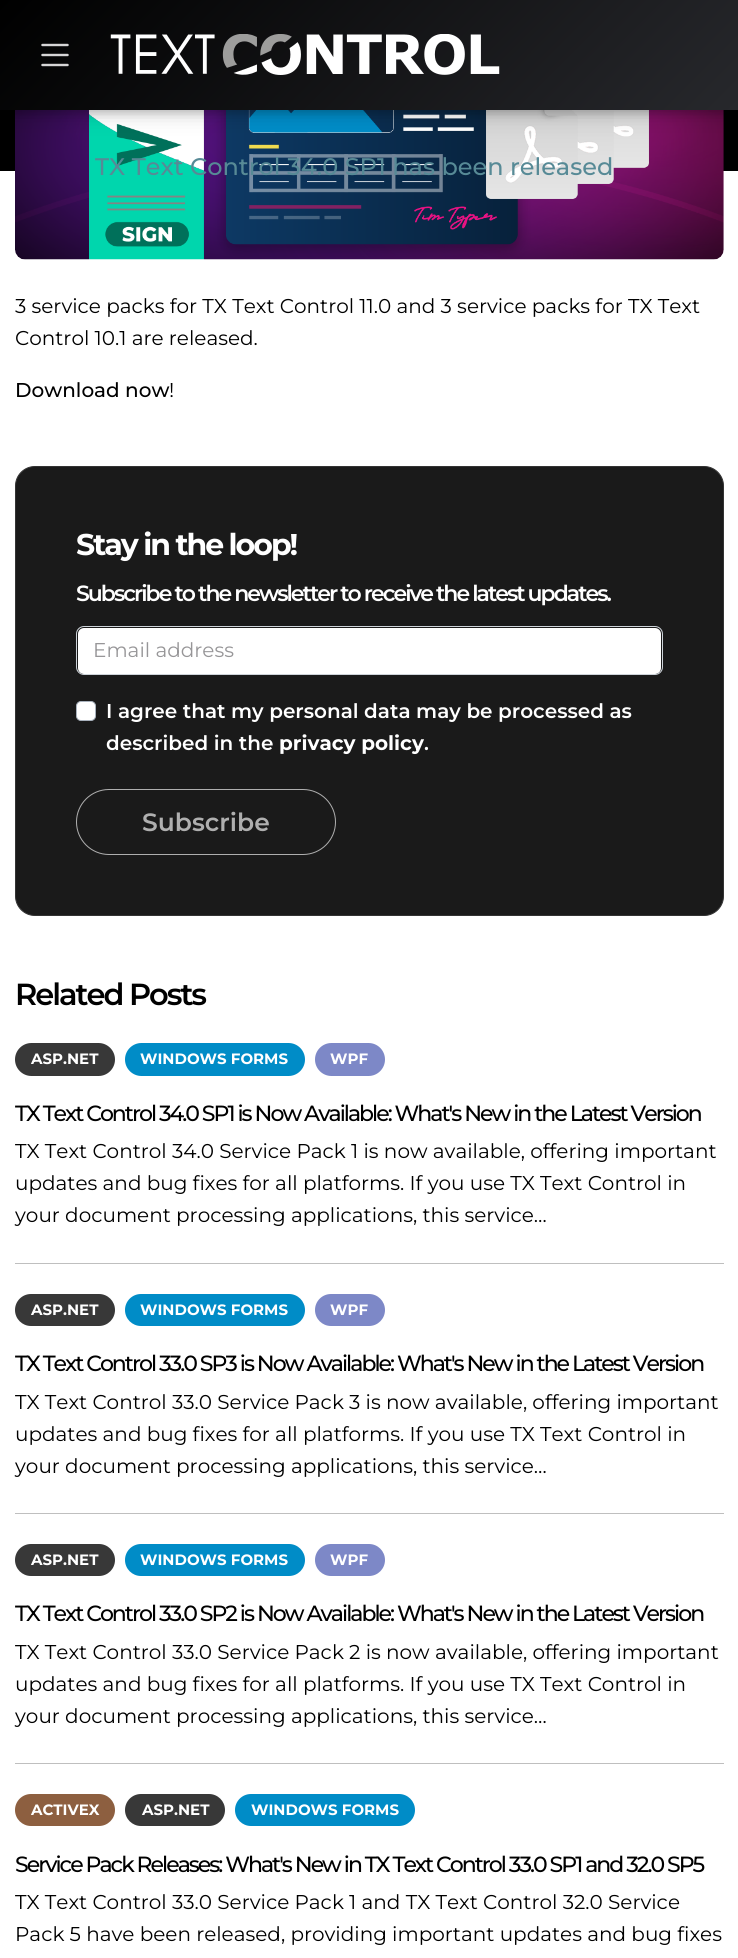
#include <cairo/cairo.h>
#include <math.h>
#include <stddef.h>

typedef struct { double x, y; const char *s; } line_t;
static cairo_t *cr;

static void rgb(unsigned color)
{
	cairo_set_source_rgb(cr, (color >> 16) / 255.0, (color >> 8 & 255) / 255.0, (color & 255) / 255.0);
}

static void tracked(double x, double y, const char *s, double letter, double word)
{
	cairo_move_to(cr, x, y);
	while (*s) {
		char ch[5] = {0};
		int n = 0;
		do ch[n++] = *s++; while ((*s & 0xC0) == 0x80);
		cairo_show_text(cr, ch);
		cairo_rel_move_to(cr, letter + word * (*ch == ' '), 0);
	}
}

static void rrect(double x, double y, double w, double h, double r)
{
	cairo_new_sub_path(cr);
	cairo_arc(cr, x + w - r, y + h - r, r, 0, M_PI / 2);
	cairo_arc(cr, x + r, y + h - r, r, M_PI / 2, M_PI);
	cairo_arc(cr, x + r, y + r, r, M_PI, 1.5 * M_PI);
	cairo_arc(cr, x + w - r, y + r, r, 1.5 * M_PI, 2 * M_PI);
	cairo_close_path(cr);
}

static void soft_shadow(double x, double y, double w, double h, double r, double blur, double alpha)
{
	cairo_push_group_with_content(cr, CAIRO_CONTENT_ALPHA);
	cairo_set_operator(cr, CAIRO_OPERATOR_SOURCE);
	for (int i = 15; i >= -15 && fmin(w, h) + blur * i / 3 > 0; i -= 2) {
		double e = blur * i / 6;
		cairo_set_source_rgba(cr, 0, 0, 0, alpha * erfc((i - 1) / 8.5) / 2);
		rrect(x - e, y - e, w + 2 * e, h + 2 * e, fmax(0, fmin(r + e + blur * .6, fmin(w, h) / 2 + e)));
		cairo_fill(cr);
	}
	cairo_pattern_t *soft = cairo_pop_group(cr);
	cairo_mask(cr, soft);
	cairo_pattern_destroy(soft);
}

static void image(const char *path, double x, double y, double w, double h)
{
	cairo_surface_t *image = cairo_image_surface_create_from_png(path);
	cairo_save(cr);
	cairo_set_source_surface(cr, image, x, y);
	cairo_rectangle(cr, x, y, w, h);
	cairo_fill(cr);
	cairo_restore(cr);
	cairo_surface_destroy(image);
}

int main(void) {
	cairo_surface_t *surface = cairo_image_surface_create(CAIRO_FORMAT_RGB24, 738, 1958);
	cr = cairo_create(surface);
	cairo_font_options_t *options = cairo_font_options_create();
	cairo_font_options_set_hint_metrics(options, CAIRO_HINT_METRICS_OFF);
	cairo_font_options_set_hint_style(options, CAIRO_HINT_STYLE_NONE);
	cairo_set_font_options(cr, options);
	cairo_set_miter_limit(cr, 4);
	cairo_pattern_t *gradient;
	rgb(0x000000);
	cairo_paint(cr);
	rgb(0xffffff);
	cairo_rectangle(cr, 0, 171, 738, 1787);
	cairo_fill(cr);
	image("img/3.png", 15, 110, 709, 150);
	rgb(0x000000);
	soft_shadow(0, 3, 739, 110, 0, 4, 0.15);
	soft_shadow(0, 4, 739, 110, 0, 10, 0.19);
	gradient = cairo_pattern_create_linear(157, -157, 582, 267);
	cairo_pattern_add_color_stop_rgba(gradient, 0, 0, 0, 0, 1);
	cairo_pattern_add_color_stop_rgba(gradient, 1, 0.153, 0.157, 0.173, 1);
	cairo_set_source(cr, gradient);
	cairo_pattern_destroy(gradient);
	cairo_rectangle(cr, 0, 0, 738, 110);
	cairo_fill(cr);
	image("img/1.png", 110, 34, 390, 41);
	image("img/2.png", 41, 43, 28, 24);
	rgb(0x1a1a1a);
	rrect(15.5, 466.5, 708, 449, 19.5);
	cairo_fill_preserve(cr);
	rgb(0x333333);
	cairo_set_line_width(cr, 1);
	cairo_stroke(cr);
	rgb(0xffffff);
	rrect(78, 628, 583, 46, 6);
	cairo_fill(cr);
	rrect(76.5, 626.5, 586, 48, 7.5);
	rgb(0xced4da);
	cairo_stroke(cr);
	rgb(0xffffff);
	rrect(76.5, 701.5, 19, 19, 4.5);
	cairo_fill_preserve(cr);
	rgb(0xa9b2bd);
	cairo_stroke(cr);
	rrect(76.5, 789.5, 259, 65, 32.5);
	rgb(0xafafaf);
	cairo_stroke(cr);
	rgb(0x383838);
	rrect(15, 1043, 100, 33, 16.5);
	cairo_fill(cr);
	rgb(0x008cc7);
	rrect(125, 1043, 180, 33, 16.5);
	cairo_fill(cr);
	rgb(0x7d88c7);
	rrect(315, 1043, 70, 33, 16.5);
	cairo_fill(cr);
	rgb(0xbfbfbf);
	cairo_rectangle(cr, 15, 1263, 709, 1);
	cairo_fill(cr);
	rgb(0x383838);
	rrect(15, 1294, 100, 32, 16);
	cairo_fill(cr);
	rgb(0x008cc7);
	rrect(125, 1294, 180, 32, 16);
	cairo_fill(cr);
	rgb(0x7d88c7);
	rrect(315, 1294, 70, 32, 16);
	cairo_fill(cr);
	rgb(0xbfbfbf);
	cairo_rectangle(cr, 15, 1513, 709, 1);
	cairo_fill(cr);
	rgb(0x383838);
	rrect(15, 1544, 100, 32, 16);
	cairo_fill(cr);
	rgb(0x008cc7);
	rrect(125, 1544, 180, 32, 16);
	cairo_fill(cr);
	rgb(0x7d88c7);
	rrect(315, 1544, 70, 32, 16);
	cairo_fill(cr);
	rgb(0xbfbfbf);
	cairo_rectangle(cr, 15, 1763, 709, 1);
	cairo_fill(cr);
	rgb(0x8d5f40);
	rrect(15, 1794, 100, 32, 16);
	cairo_fill(cr);
	rgb(0x383838);
	rrect(125, 1794, 100, 32, 16);
	cairo_fill(cr);
	rgb(0x008cc7);
	rrect(235, 1794, 180, 32, 16);
	cairo_fill(cr);
	cairo_select_font_face(cr, "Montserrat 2 Thin", CAIRO_FONT_SLANT_NORMAL, CAIRO_FONT_WEIGHT_NORMAL);
	cairo_set_font_size(cr, 24);
	rgb(0x578a96);
	cairo_move_to(cr, 95, 175);
	cairo_show_text(cr, "TX Text Control 34.0 SP1 has been released");
	cairo_select_font_face(cr, "Montserrat Thin", CAIRO_FONT_SLANT_NORMAL, CAIRO_FONT_WEIGHT_NORMAL);
	cairo_set_font_size(cr, 20);
	rgb(0x000000);
	cairo_move_to(cr, 15, 313);
	cairo_show_text(cr, "3 service packs for TX Text Control 11.0 and 3 service packs for TX Text");
	cairo_move_to(cr, 15, 345);
	cairo_show_text(cr, "Control 10.1 are released.");
	cairo_select_font_face(cr, "Montserrat 2 Thin", CAIRO_FONT_SLANT_NORMAL, CAIRO_FONT_WEIGHT_NORMAL);
	cairo_move_to(cr, 15, 397);
	cairo_show_text(cr, "Download now");
	cairo_select_font_face(cr, "Montserrat Thin", CAIRO_FONT_SLANT_NORMAL, CAIRO_FONT_WEIGHT_NORMAL);
	cairo_move_to(cr, 169, 397);
	cairo_show_text(cr, "!");
	cairo_select_font_face(cr, "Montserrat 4 Thin", CAIRO_FONT_SLANT_NORMAL, CAIRO_FONT_WEIGHT_NORMAL);
	cairo_set_font_size(cr, 30);
	rgb(0xffffff);
	tracked(76, 555, "Stay in the loop!", -2, 0);
	cairo_select_font_face(cr, "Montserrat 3 Thin", CAIRO_FONT_SLANT_NORMAL, CAIRO_FONT_WEIGHT_NORMAL);
	cairo_set_font_size(cr, 22);
	tracked(76, 601, "Subscribe to the newsletter to receive the latest updates.", -2, 0);
	cairo_select_font_face(cr, "Montserrat Thin", CAIRO_FONT_SLANT_NORMAL, CAIRO_FONT_WEIGHT_NORMAL);
	cairo_set_font_size(cr, 20);
	rgb(0x979698);
	cairo_move_to(cr, 93, 657);
	cairo_show_text(cr, "Email address");
	cairo_select_font_face(cr, "Montserrat 3 Thin", CAIRO_FONT_SLANT_NORMAL, CAIRO_FONT_WEIGHT_NORMAL);
	rgb(0xffffff);
	cairo_move_to(cr, 106, 718);
	cairo_show_text(cr, "I agree that my personal data may be processed as");
	cairo_move_to(cr, 106, 750);
	cairo_show_text(cr, "described in the");
	cairo_select_font_face(cr, "Montserrat 4 Thin", CAIRO_FONT_SLANT_NORMAL, CAIRO_FONT_WEIGHT_NORMAL);
	cairo_move_to(cr, 279, 750);
	cairo_show_text(cr, "privacy policy");
	cairo_select_font_face(cr, "Montserrat 3 Thin", CAIRO_FONT_SLANT_NORMAL, CAIRO_FONT_WEIGHT_NORMAL);
	cairo_move_to(cr, 424, 750);
	cairo_show_text(cr, ".");
	cairo_set_font_size(cr, 25);
	rgb(0xafafaf);
	cairo_move_to(cr, 142, 831);
	cairo_show_text(cr, "Subscribe");
	cairo_set_font_size(cr, 30.5);
	rgb(0x000000);
	tracked(15, 1005, "Related Posts", -2, 0);
	cairo_select_font_face(cr, "Montserrat 4 Thin", CAIRO_FONT_SLANT_NORMAL, CAIRO_FONT_WEIGHT_NORMAL);
	cairo_set_font_size(cr, 15);
	rgb(0xffffff);
	{
		static const line_t items[] = {
			{31, 1064, "ASP.NET"},
			{140, 1064, "WINDOWS FORMS"},
			{330, 1064, "WPF"},
		};
		for (size_t i = 0; i < sizeof items / sizeof *items; i++) {
			cairo_move_to(cr, items[i].x, items[i].y);
			cairo_show_text(cr, items[i].s);
		}
	}
	cairo_select_font_face(cr, "Montserrat 2 Thin", CAIRO_FONT_SLANT_NORMAL, CAIRO_FONT_WEIGHT_NORMAL);
	cairo_set_font_size(cr, 22);
	rgb(0x000000);
	tracked(15, 1121, "TX Text Control 34.0 SP1 is Now Available: What's New in the Latest Version", -2, 0);
	cairo_select_font_face(cr, "Montserrat Thin", CAIRO_FONT_SLANT_NORMAL, CAIRO_FONT_WEIGHT_NORMAL);
	cairo_set_font_size(cr, 20);
	{
		static const line_t items[] = {
			{15, 1158, "TX Text Control 34.0 Service Pack 1 is now available, offering important"},
			{15, 1190, "updates and bug fixes for all platforms. If you use TX Text Control in"},
			{15, 1222, "your document processing applications, this service…"},
		};
		for (size_t i = 0; i < sizeof items / sizeof *items; i++) {
			cairo_move_to(cr, items[i].x, items[i].y);
			cairo_show_text(cr, items[i].s);
		}
	}
	cairo_select_font_face(cr, "Montserrat 4 Thin", CAIRO_FONT_SLANT_NORMAL, CAIRO_FONT_WEIGHT_NORMAL);
	cairo_set_font_size(cr, 15);
	rgb(0xffffff);
	{
		static const line_t items[] = {
			{31, 1315, "ASP.NET"},
			{140, 1315, "WINDOWS FORMS"},
			{330, 1315, "WPF"},
		};
		for (size_t i = 0; i < sizeof items / sizeof *items; i++) {
			cairo_move_to(cr, items[i].x, items[i].y);
			cairo_show_text(cr, items[i].s);
		}
	}
	cairo_select_font_face(cr, "Montserrat 2 Thin", CAIRO_FONT_SLANT_NORMAL, CAIRO_FONT_WEIGHT_NORMAL);
	cairo_set_font_size(cr, 22);
	rgb(0x000000);
	tracked(15, 1371, "TX Text Control 33.0 SP3 is Now Available: What's New in the Latest Version", -2, 0);
	cairo_select_font_face(cr, "Montserrat Thin", CAIRO_FONT_SLANT_NORMAL, CAIRO_FONT_WEIGHT_NORMAL);
	cairo_set_font_size(cr, 20);
	{
		static const line_t items[] = {
			{15, 1409, "TX Text Control 33.0 Service Pack 3 is now available, offering important"},
			{15, 1441, "updates and bug fixes for all platforms. If you use TX Text Control in"},
			{15, 1473, "your document processing applications, this service…"},
		};
		for (size_t i = 0; i < sizeof items / sizeof *items; i++) {
			cairo_move_to(cr, items[i].x, items[i].y);
			cairo_show_text(cr, items[i].s);
		}
	}
	cairo_select_font_face(cr, "Montserrat 4 Thin", CAIRO_FONT_SLANT_NORMAL, CAIRO_FONT_WEIGHT_NORMAL);
	cairo_set_font_size(cr, 15);
	rgb(0xffffff);
	{
		static const line_t items[] = {
			{31, 1565, "ASP.NET"},
			{140, 1565, "WINDOWS FORMS"},
			{330, 1565, "WPF"},
		};
		for (size_t i = 0; i < sizeof items / sizeof *items; i++) {
			cairo_move_to(cr, items[i].x, items[i].y);
			cairo_show_text(cr, items[i].s);
		}
	}
	cairo_select_font_face(cr, "Montserrat 2 Thin", CAIRO_FONT_SLANT_NORMAL, CAIRO_FONT_WEIGHT_NORMAL);
	cairo_set_font_size(cr, 22);
	rgb(0x000000);
	tracked(15, 1621, "TX Text Control 33.0 SP2 is Now Available: What's New in the Latest Version", -2, 0);
	cairo_select_font_face(cr, "Montserrat Thin", CAIRO_FONT_SLANT_NORMAL, CAIRO_FONT_WEIGHT_NORMAL);
	cairo_set_font_size(cr, 20);
	{
		static const line_t items[] = {
			{15, 1659, "TX Text Control 33.0 Service Pack 2 is now available, offering important"},
			{15, 1691, "updates and bug fixes for all platforms. If you use TX Text Control in"},
			{15, 1723, "your document processing applications, this service…"},
		};
		for (size_t i = 0; i < sizeof items / sizeof *items; i++) {
			cairo_move_to(cr, items[i].x, items[i].y);
			cairo_show_text(cr, items[i].s);
		}
	}
	cairo_select_font_face(cr, "Montserrat 4 Thin", CAIRO_FONT_SLANT_NORMAL, CAIRO_FONT_WEIGHT_NORMAL);
	cairo_set_font_size(cr, 15);
	rgb(0xffffff);
	{
		static const line_t items[] = {
			{31, 1815, "ACTIVEX"},
			{142, 1815, "ASP.NET"},
			{251, 1815, "WINDOWS FORMS"},
		};
		for (size_t i = 0; i < sizeof items / sizeof *items; i++) {
			cairo_move_to(cr, items[i].x, items[i].y);
			cairo_show_text(cr, items[i].s);
		}
	}
	cairo_select_font_face(cr, "Montserrat 2 Thin", CAIRO_FONT_SLANT_NORMAL, CAIRO_FONT_WEIGHT_NORMAL);
	cairo_set_font_size(cr, 22);
	rgb(0x000000);
	tracked(15, 1872, "Service Pack Releases: What's New in TX Text Control 33.0 SP1 and 32.0 SP5", -2, 0);
	cairo_select_font_face(cr, "Montserrat Thin", CAIRO_FONT_SLANT_NORMAL, CAIRO_FONT_WEIGHT_NORMAL);
	cairo_set_font_size(cr, 20);
	cairo_move_to(cr, 15, 1909);
	cairo_show_text(cr, "TX Text Control 33.0 Service Pack 1 and TX Text Control 32.0 Service");
	cairo_move_to(cr, 15, 1941);
	cairo_show_text(cr, "Pack 5 have been released, providing important updates and bug fixes");
	cairo_surface_write_to_png(surface, "page.png");
	cairo_font_options_destroy(options);
	cairo_destroy(cr);
	cairo_surface_destroy(surface);
	return 0;
}
